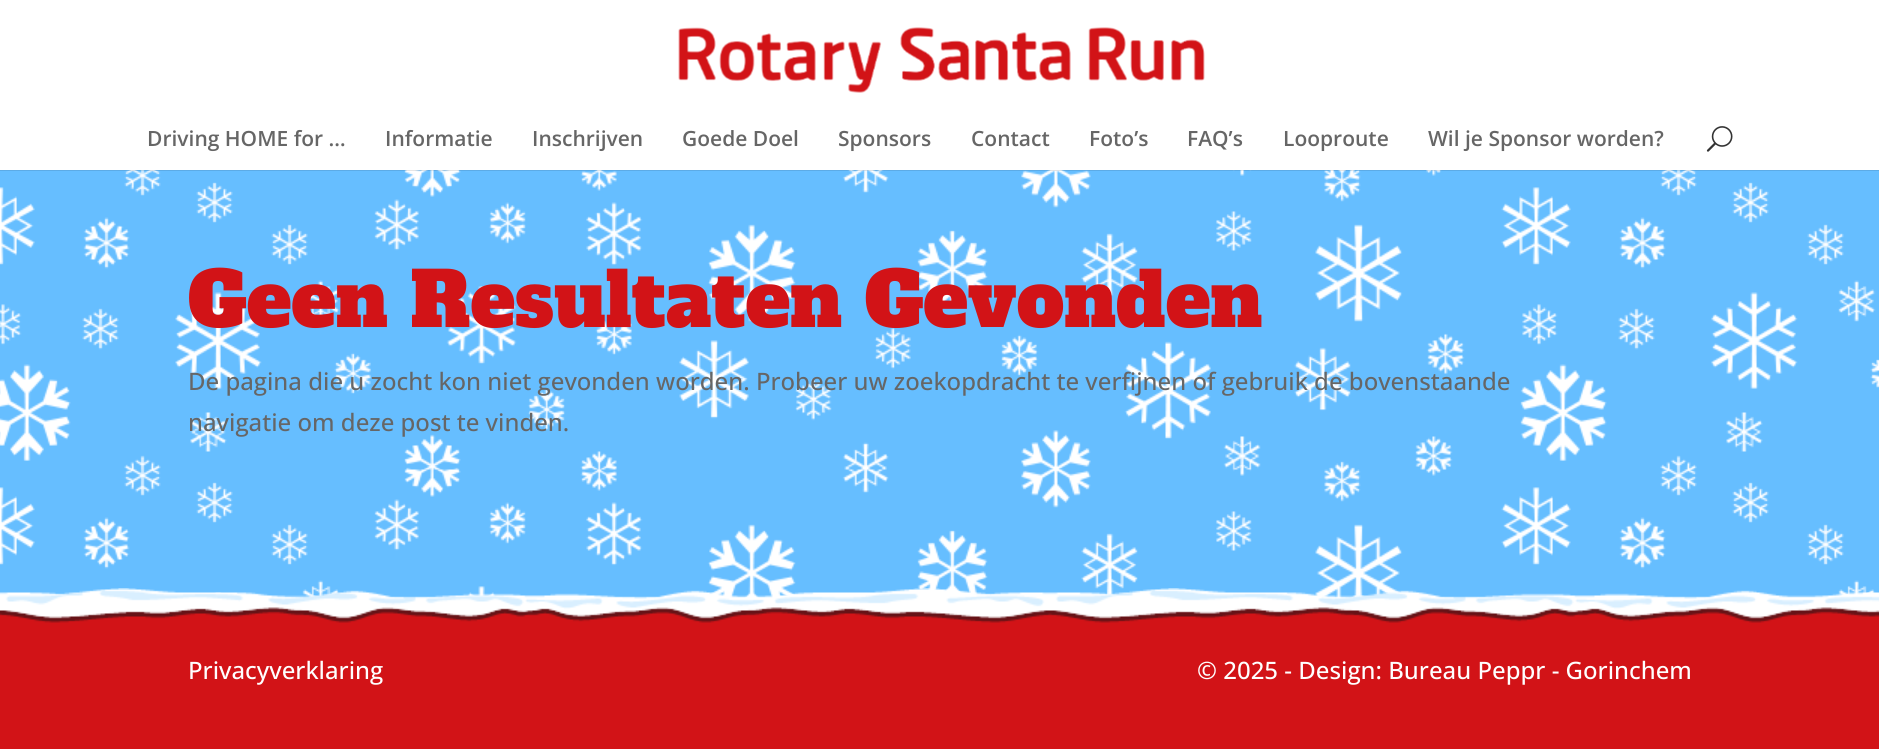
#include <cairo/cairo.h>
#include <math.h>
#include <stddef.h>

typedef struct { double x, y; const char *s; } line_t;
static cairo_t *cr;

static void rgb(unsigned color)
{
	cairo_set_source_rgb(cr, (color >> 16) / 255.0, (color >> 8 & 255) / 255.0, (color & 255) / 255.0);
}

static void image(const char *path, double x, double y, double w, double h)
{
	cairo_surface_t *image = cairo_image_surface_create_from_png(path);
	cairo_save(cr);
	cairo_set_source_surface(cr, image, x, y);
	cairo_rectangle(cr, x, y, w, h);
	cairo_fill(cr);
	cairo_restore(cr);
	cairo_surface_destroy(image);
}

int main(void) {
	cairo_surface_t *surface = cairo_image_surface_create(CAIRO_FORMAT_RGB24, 1879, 749);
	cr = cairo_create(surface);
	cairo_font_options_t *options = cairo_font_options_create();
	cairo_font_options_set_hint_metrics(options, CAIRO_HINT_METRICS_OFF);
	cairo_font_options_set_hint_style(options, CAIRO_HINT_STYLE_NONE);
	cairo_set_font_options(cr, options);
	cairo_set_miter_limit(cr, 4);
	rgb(0xd21317);
	cairo_paint(cr);
	image("img/3.png", 0, 170, 1879, 429);
	cairo_set_source_rgba(cr, 0, 0, 0, 0.1);
	cairo_new_path(cr);
	cairo_move_to(cr, 0, 170);
	cairo_line_to(cr, 0, 171);
	cairo_line_to(cr, 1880, 171);
	cairo_line_to(cr, 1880, 2);
	cairo_line_to(cr, 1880, 170);
	cairo_close_path(cr);
	cairo_fill(cr);
	rgb(0xffffff);
	cairo_rectangle(cr, 0, 0, 1879, 170);
	cairo_fill(cr);
	image("img/1.png", 678, 27, 527, 66);
	image("img/2.png", 1706, 126, 27, 26);
	image("img/4.png", 0, 588, 1879, 39);
	cairo_select_font_face(cr, "Open Sans SemiBold", CAIRO_FONT_SLANT_NORMAL, CAIRO_FONT_WEIGHT_NORMAL);
	cairo_set_font_size(cr, 21);
	rgb(0x666666);
	{
		static const line_t items[] = {
			{147, 146, "Driving HOME for …"},
			{385, 146, "Informatie"},
			{532, 146, "Inschrijven"},
			{682, 146, "Goede Doel"},
			{838, 146, "Sponsors"},
			{971, 146, "Contact"},
			{1089, 146, "Foto’s"},
			{1187, 146, "FAQ’s"},
			{1283, 146, "Looproute"},
			{1428, 146, "Wil je Sponsor worden?"},
		};
		for (size_t i = 0; i < sizeof items / sizeof *items; i++) {
			cairo_move_to(cr, items[i].x, items[i].y);
			cairo_show_text(cr, items[i].s);
		}
	}
	cairo_select_font_face(cr, "Alfa Slab One", CAIRO_FONT_SLANT_NORMAL, CAIRO_FONT_WEIGHT_NORMAL);
	cairo_set_font_size(cr, 75);
	rgb(0xd21317);
	cairo_move_to(cr, 188, 327);
	cairo_show_text(cr, "Geen Resultaten Gevonden");
	cairo_select_font_face(cr, "Open Sans Medium", CAIRO_FONT_SLANT_NORMAL, CAIRO_FONT_WEIGHT_NORMAL);
	cairo_set_font_size(cr, 24);
	rgb(0x666666);
	cairo_move_to(cr, 188, 390);
	cairo_show_text(cr, "De pagina die u zocht kon niet gevonden worden. Probeer uw zoekopdracht te verfijnen of gebruik de bovenstaande");
	cairo_move_to(cr, 188, 431);
	cairo_show_text(cr, "navigatie om deze post te vinden.");
	rgb(0xffffff);
	cairo_move_to(cr, 188, 679);
	cairo_show_text(cr, "Privacyverklaring");
	cairo_move_to(cr, 1197, 679);
	cairo_show_text(cr, "© 2025 - Design: Bureau Peppr - Gorinchem");
	cairo_surface_write_to_png(surface, "page.png");
	cairo_font_options_destroy(options);
	cairo_destroy(cr);
	cairo_surface_destroy(surface);
	return 0;
}
